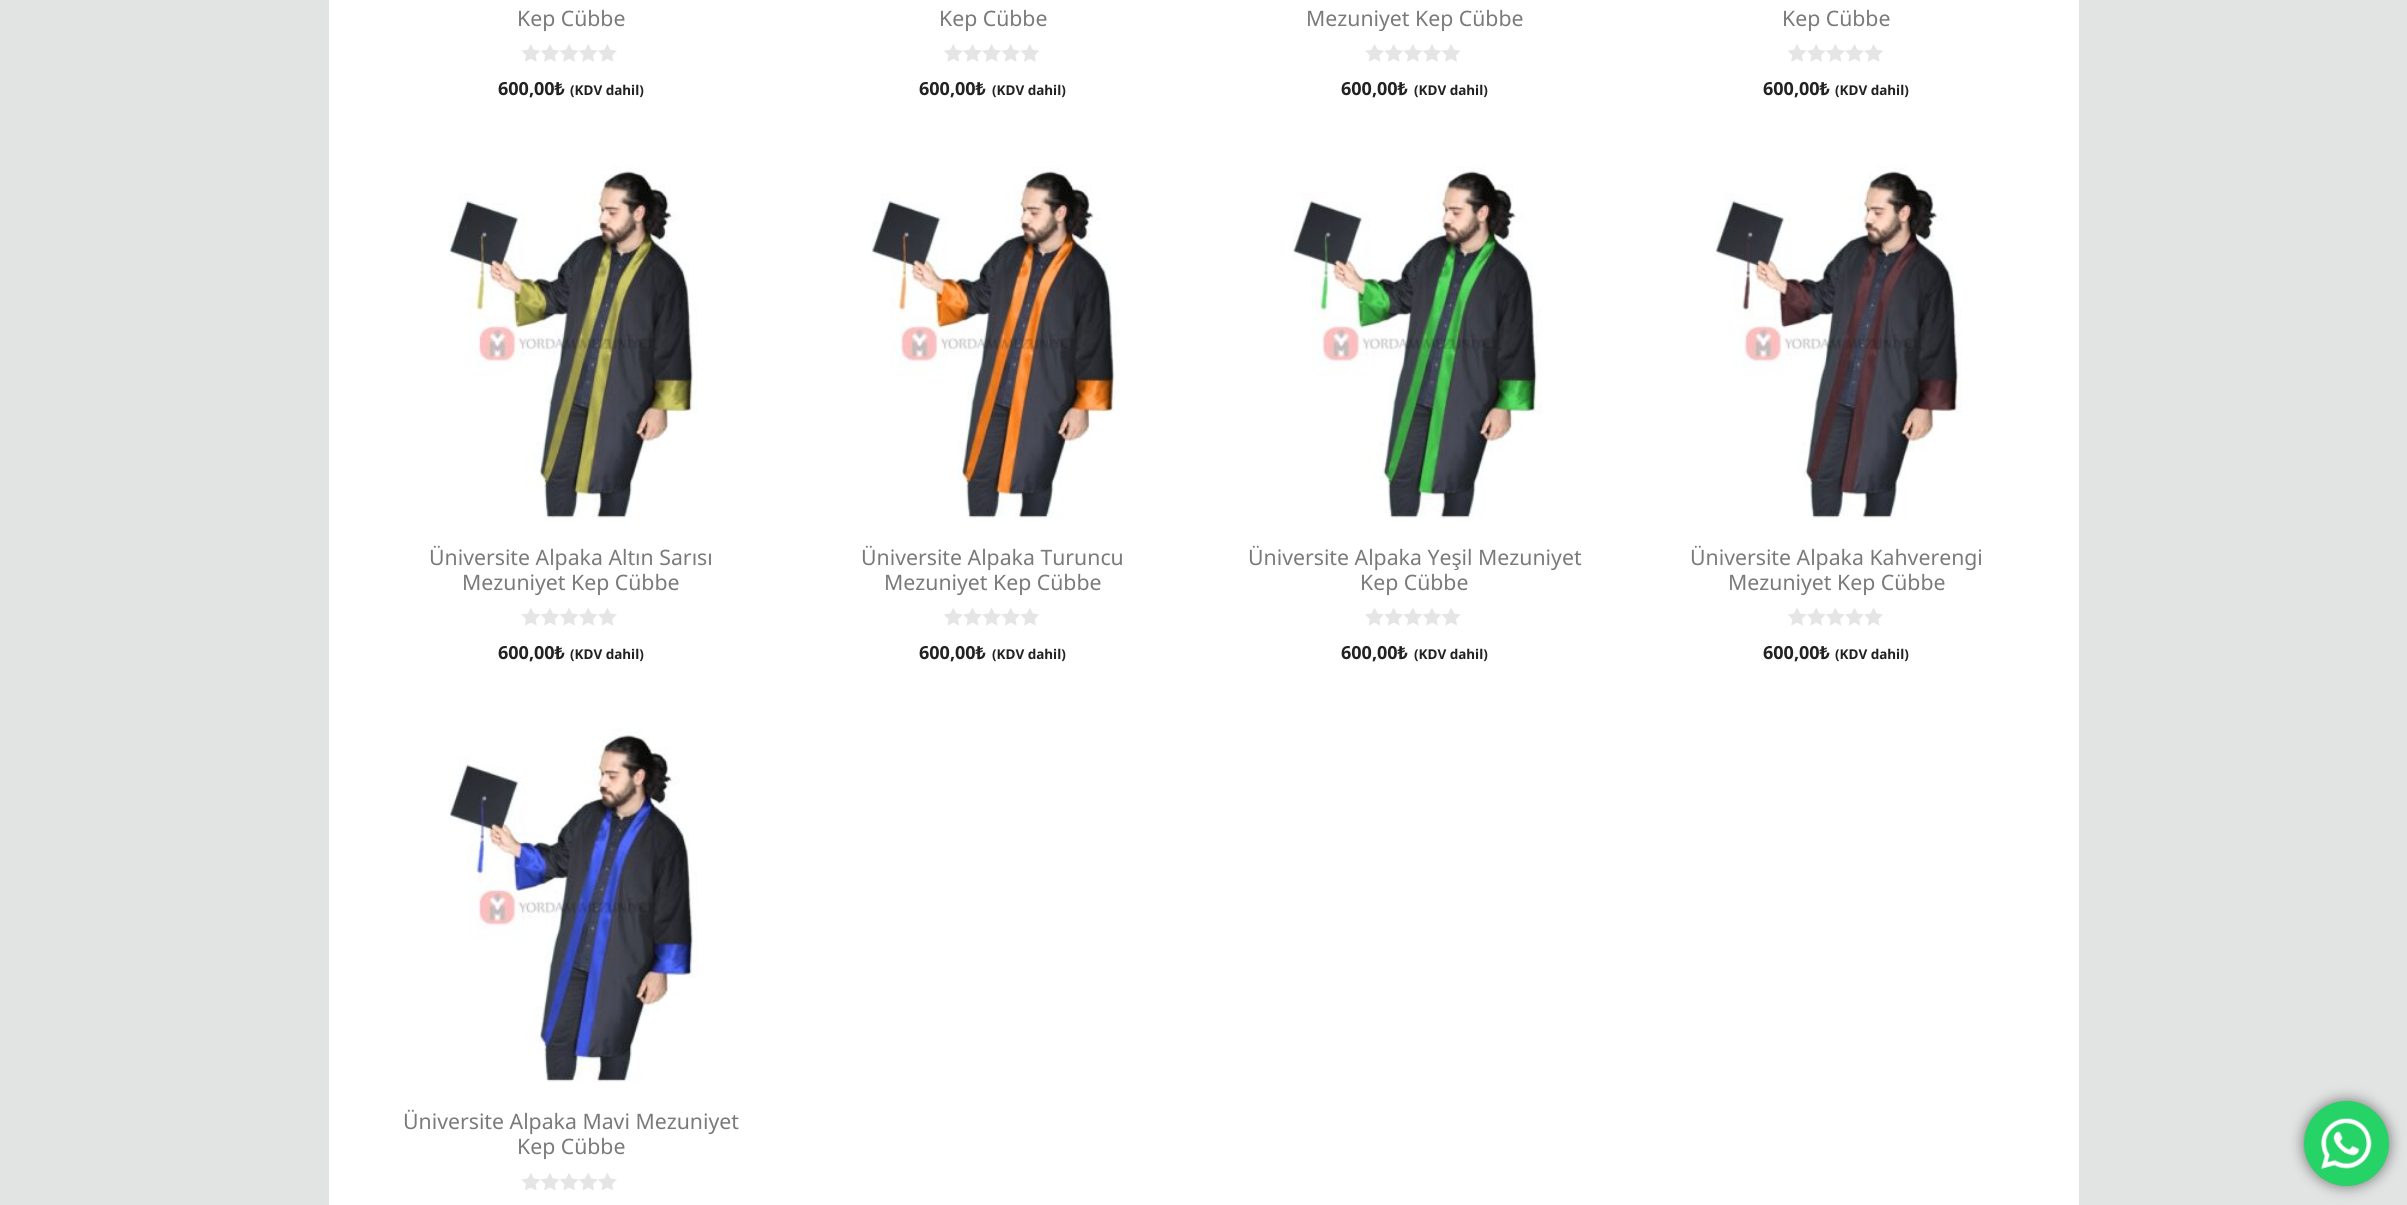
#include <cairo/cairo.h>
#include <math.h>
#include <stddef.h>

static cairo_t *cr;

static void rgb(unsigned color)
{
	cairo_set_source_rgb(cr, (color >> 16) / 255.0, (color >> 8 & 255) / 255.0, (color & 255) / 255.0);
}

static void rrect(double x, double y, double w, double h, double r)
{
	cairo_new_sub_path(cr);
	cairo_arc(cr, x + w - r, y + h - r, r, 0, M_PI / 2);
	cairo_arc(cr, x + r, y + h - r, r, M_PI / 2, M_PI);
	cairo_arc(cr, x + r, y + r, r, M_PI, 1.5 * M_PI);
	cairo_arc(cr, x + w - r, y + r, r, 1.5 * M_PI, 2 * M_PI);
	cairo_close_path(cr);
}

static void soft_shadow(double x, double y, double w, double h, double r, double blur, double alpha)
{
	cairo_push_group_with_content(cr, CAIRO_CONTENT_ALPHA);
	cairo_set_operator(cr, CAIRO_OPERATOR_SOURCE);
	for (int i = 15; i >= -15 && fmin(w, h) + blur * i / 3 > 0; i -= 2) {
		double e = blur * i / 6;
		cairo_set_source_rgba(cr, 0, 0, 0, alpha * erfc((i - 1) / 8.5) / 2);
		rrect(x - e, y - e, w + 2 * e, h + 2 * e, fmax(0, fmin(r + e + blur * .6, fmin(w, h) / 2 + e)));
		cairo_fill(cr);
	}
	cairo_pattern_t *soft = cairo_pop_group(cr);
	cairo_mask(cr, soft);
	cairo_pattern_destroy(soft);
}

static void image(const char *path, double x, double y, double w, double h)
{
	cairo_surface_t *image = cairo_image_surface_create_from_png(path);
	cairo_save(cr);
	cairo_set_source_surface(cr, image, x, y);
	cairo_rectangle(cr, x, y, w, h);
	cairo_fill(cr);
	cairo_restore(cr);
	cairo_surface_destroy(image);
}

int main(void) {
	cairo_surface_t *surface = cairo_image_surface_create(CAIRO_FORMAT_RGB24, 2407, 1205);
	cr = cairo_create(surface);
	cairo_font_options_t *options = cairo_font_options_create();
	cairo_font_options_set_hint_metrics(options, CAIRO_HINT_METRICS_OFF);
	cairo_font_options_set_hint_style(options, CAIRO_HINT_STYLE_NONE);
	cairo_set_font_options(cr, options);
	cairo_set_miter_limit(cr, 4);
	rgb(0xe2e3e3);
	cairo_paint(cr);
	rgb(0xffffff);
	cairo_rectangle(cr, 329, 0, 1750, 1205);
	cairo_fill(cr);
	image("img/1.png", 521, 44, 96, 18);
	image("img/2.png", 944, 44, 95, 18);
	image("img/3.png", 1365, 44, 95, 18);
	image("img/4.png", 1788, 44, 95, 18);
	image("img/5.png", 449, 166, 249, 353);
	image("img/6.png", 521, 608, 96, 18);
	image("img/7.png", 871, 166, 249, 353);
	image("img/8.png", 944, 608, 95, 18);
	image("img/9.png", 1293, 166, 250, 353);
	image("img/10.png", 1365, 608, 96, 18);
	image("img/11.png", 1715, 166, 247, 353);
	image("img/12.png", 1788, 608, 95, 18);
	image("img/13.png", 449, 728, 249, 354);
	image("img/14.png", 521, 1173, 96, 17);
	rgb(0x000000);
	soft_shadow(2304, 1101, 85, 85, 42.5, 7, 0.5);
	rgb(0x25d366);
	cairo_arc(cr, 2346.5, 1143.5, 42.5, 0, 2 * M_PI);
	cairo_fill(cr);
	image("img/15.png", 2321, 1118, 51, 51);
	cairo_select_font_face(cr, "Noto Sans", CAIRO_FONT_SLANT_NORMAL, CAIRO_FONT_WEIGHT_NORMAL);
	cairo_set_font_size(cr, 21.25);
	rgb(0x7a7a7a);
	cairo_move_to(cr, 517, 26);
	cairo_show_text(cr, "Kep Cübbe");
	cairo_select_font_face(cr, "Noto Sans", CAIRO_FONT_SLANT_NORMAL, CAIRO_FONT_WEIGHT_BOLD);
	cairo_set_font_size(cr, 18);
	rgb(0x222222);
	cairo_move_to(cr, 498, 95);
	cairo_show_text(cr, "600,00₺");
	cairo_set_font_size(cr, 13.5);
	cairo_move_to(cr, 570, 95);
	cairo_show_text(cr, "(KDV dahil)");
	cairo_select_font_face(cr, "Noto Sans", CAIRO_FONT_SLANT_NORMAL, CAIRO_FONT_WEIGHT_NORMAL);
	cairo_set_font_size(cr, 21.25);
	rgb(0x7a7a7a);
	cairo_move_to(cr, 939, 26);
	cairo_show_text(cr, "Kep Cübbe");
	cairo_select_font_face(cr, "Noto Sans", CAIRO_FONT_SLANT_NORMAL, CAIRO_FONT_WEIGHT_BOLD);
	cairo_set_font_size(cr, 18);
	rgb(0x222222);
	cairo_move_to(cr, 919, 95);
	cairo_show_text(cr, "600,00₺");
	cairo_set_font_size(cr, 13.5);
	cairo_move_to(cr, 992, 95);
	cairo_show_text(cr, "(KDV dahil)");
	cairo_select_font_face(cr, "Noto Sans", CAIRO_FONT_SLANT_NORMAL, CAIRO_FONT_WEIGHT_NORMAL);
	cairo_set_font_size(cr, 21.25);
	rgb(0x7a7a7a);
	cairo_move_to(cr, 1306, 26);
	cairo_show_text(cr, "Mezuniyet Kep Cübbe");
	cairo_select_font_face(cr, "Noto Sans", CAIRO_FONT_SLANT_NORMAL, CAIRO_FONT_WEIGHT_BOLD);
	cairo_set_font_size(cr, 18);
	rgb(0x222222);
	cairo_move_to(cr, 1341, 95);
	cairo_show_text(cr, "600,00₺");
	cairo_set_font_size(cr, 13.5);
	cairo_move_to(cr, 1414, 95);
	cairo_show_text(cr, "(KDV dahil)");
	cairo_select_font_face(cr, "Noto Sans", CAIRO_FONT_SLANT_NORMAL, CAIRO_FONT_WEIGHT_NORMAL);
	cairo_set_font_size(cr, 21.25);
	rgb(0x7a7a7a);
	cairo_move_to(cr, 1782, 26);
	cairo_show_text(cr, "Kep Cübbe");
	cairo_select_font_face(cr, "Noto Sans", CAIRO_FONT_SLANT_NORMAL, CAIRO_FONT_WEIGHT_BOLD);
	cairo_set_font_size(cr, 18);
	rgb(0x222222);
	cairo_move_to(cr, 1763, 95);
	cairo_show_text(cr, "600,00₺");
	cairo_set_font_size(cr, 13.5);
	cairo_move_to(cr, 1835, 95);
	cairo_show_text(cr, "(KDV dahil)");
	cairo_select_font_face(cr, "Noto Sans", CAIRO_FONT_SLANT_NORMAL, CAIRO_FONT_WEIGHT_NORMAL);
	cairo_set_font_size(cr, 21.25);
	rgb(0x7a7a7a);
	cairo_move_to(cr, 429, 565);
	cairo_show_text(cr, "Üniversite Alpaka Altın Sarısı");
	cairo_move_to(cr, 462, 590);
	cairo_show_text(cr, "Mezuniyet Kep Cübbe");
	cairo_select_font_face(cr, "Noto Sans", CAIRO_FONT_SLANT_NORMAL, CAIRO_FONT_WEIGHT_BOLD);
	cairo_set_font_size(cr, 18);
	rgb(0x222222);
	cairo_move_to(cr, 498, 659);
	cairo_show_text(cr, "600,00₺");
	cairo_set_font_size(cr, 13.5);
	cairo_move_to(cr, 570, 659);
	cairo_show_text(cr, "(KDV dahil)");
	cairo_select_font_face(cr, "Noto Sans", CAIRO_FONT_SLANT_NORMAL, CAIRO_FONT_WEIGHT_NORMAL);
	cairo_set_font_size(cr, 21.25);
	rgb(0x7a7a7a);
	cairo_move_to(cr, 861, 565);
	cairo_show_text(cr, "Üniversite Alpaka Turuncu");
	cairo_move_to(cr, 884, 590);
	cairo_show_text(cr, "Mezuniyet Kep Cübbe");
	cairo_select_font_face(cr, "Noto Sans", CAIRO_FONT_SLANT_NORMAL, CAIRO_FONT_WEIGHT_BOLD);
	cairo_set_font_size(cr, 18);
	rgb(0x222222);
	cairo_move_to(cr, 919, 659);
	cairo_show_text(cr, "600,00₺");
	cairo_set_font_size(cr, 13.5);
	cairo_move_to(cr, 992, 659);
	cairo_show_text(cr, "(KDV dahil)");
	cairo_select_font_face(cr, "Noto Sans", CAIRO_FONT_SLANT_NORMAL, CAIRO_FONT_WEIGHT_NORMAL);
	cairo_set_font_size(cr, 21.25);
	rgb(0x7a7a7a);
	cairo_move_to(cr, 1248, 565);
	cairo_show_text(cr, "Üniversite Alpaka Yeşil Mezuniyet");
	cairo_move_to(cr, 1360, 590);
	cairo_show_text(cr, "Kep Cübbe");
	cairo_select_font_face(cr, "Noto Sans", CAIRO_FONT_SLANT_NORMAL, CAIRO_FONT_WEIGHT_BOLD);
	cairo_set_font_size(cr, 18);
	rgb(0x222222);
	cairo_move_to(cr, 1341, 659);
	cairo_show_text(cr, "600,00₺");
	cairo_set_font_size(cr, 13.5);
	cairo_move_to(cr, 1414, 659);
	cairo_show_text(cr, "(KDV dahil)");
	cairo_select_font_face(cr, "Noto Sans", CAIRO_FONT_SLANT_NORMAL, CAIRO_FONT_WEIGHT_NORMAL);
	cairo_set_font_size(cr, 21.25);
	rgb(0x7a7a7a);
	cairo_move_to(cr, 1690, 565);
	cairo_show_text(cr, "Üniversite Alpaka Kahverengi");
	cairo_move_to(cr, 1728, 590);
	cairo_show_text(cr, "Mezuniyet Kep Cübbe");
	cairo_select_font_face(cr, "Noto Sans", CAIRO_FONT_SLANT_NORMAL, CAIRO_FONT_WEIGHT_BOLD);
	cairo_set_font_size(cr, 18);
	rgb(0x222222);
	cairo_move_to(cr, 1763, 659);
	cairo_show_text(cr, "600,00₺");
	cairo_set_font_size(cr, 13.5);
	cairo_move_to(cr, 1835, 659);
	cairo_show_text(cr, "(KDV dahil)");
	cairo_select_font_face(cr, "Noto Sans", CAIRO_FONT_SLANT_NORMAL, CAIRO_FONT_WEIGHT_NORMAL);
	cairo_set_font_size(cr, 21.25);
	rgb(0x7a7a7a);
	cairo_move_to(cr, 403, 1129);
	cairo_show_text(cr, "Üniversite Alpaka Mavi Mezuniyet");
	cairo_move_to(cr, 517, 1154);
	cairo_show_text(cr, "Kep Cübbe");
	cairo_surface_write_to_png(surface, "page.png");
	cairo_font_options_destroy(options);
	cairo_destroy(cr);
	cairo_surface_destroy(surface);
	return 0;
}
